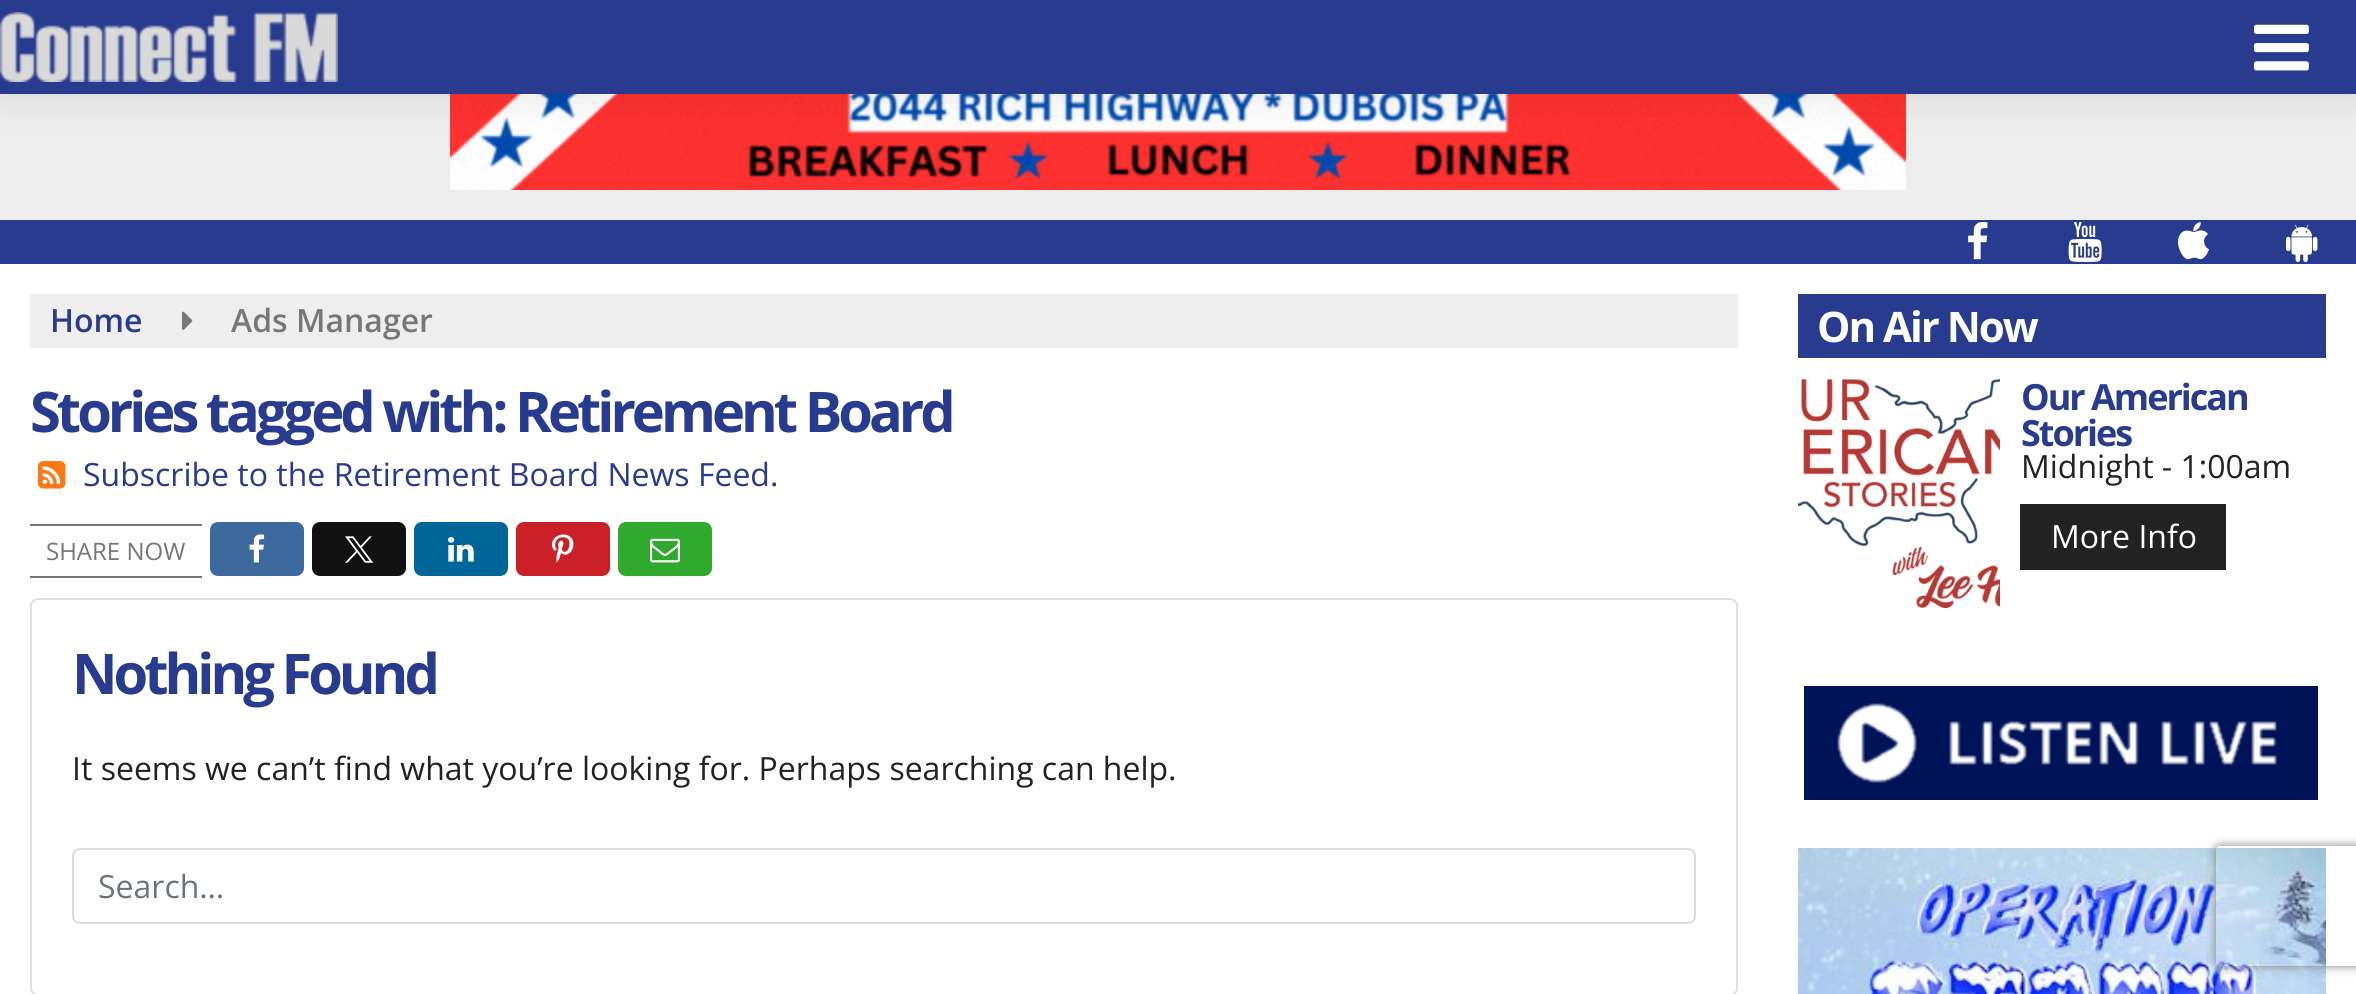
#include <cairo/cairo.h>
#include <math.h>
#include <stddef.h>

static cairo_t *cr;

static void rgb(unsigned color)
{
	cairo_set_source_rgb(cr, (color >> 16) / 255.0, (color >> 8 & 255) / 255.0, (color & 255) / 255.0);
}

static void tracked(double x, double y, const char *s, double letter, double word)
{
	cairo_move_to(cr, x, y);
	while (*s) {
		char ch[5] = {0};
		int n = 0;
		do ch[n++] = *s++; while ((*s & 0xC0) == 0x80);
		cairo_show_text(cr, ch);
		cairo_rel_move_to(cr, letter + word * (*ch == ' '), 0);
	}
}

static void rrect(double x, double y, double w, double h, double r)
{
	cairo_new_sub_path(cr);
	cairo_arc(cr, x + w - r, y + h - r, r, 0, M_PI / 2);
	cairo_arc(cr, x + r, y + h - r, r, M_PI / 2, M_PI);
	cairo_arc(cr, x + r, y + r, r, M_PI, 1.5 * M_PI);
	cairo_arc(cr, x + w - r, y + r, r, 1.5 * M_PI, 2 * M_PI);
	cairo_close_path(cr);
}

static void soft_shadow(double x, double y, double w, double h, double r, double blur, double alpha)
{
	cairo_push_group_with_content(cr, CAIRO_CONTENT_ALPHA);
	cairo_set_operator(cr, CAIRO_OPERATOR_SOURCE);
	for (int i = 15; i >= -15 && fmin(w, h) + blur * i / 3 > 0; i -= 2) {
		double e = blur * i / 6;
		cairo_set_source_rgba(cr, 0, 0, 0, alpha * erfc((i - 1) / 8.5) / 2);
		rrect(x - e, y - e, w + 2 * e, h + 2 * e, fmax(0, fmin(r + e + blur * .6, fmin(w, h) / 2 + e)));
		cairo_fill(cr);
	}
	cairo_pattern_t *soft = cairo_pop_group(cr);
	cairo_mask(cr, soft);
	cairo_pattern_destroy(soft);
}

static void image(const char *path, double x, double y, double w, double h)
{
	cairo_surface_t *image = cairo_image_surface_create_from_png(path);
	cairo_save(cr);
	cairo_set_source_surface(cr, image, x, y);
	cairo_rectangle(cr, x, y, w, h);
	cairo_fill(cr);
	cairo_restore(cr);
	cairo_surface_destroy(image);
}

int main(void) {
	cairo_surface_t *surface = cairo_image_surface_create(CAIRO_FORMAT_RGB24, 2356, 994);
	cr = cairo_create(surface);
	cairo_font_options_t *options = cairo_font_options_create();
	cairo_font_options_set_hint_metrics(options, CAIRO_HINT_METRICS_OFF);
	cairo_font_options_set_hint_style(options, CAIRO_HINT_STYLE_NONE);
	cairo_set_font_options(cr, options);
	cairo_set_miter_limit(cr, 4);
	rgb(0xffffff);
	cairo_paint(cr);
	rgb(0xededed);
	cairo_rectangle(cr, 0, 94, 2356, 126);
	cairo_fill(cr);
	image("img/3.png", 450, 94, 1456, 96);
	rgb(0x000000);
	soft_shadow(0, 0, 2356, 94, 0, 20, 0.1);
	rgb(0x293b8e);
	cairo_rectangle(cr, 0, 0, 2356, 94);
	cairo_fill(cr);
	image("img/1.png", 0, 12, 338, 70);
	image("img/2.png", 2254, 24, 55, 47);
	cairo_rectangle(cr, 0, 220, 2356, 44);
	cairo_fill(cr);
	image("img/4.png", 1968, 222, 20, 38);
	image("img/5.png", 2068, 222, 34, 40);
	image("img/6.png", 2178, 222, 31, 38);
	image("img/7.png", 2286, 224, 32, 38);
	rgb(0xeeeeee);
	cairo_rectangle(cr, 30, 294, 1708, 54);
	cairo_fill(cr);
	image("img/8.png", 182, 311, 11, 19);
	image("img/9.png", 38, 461, 28, 28);
	rgb(0x777777);
	cairo_rectangle(cr, 30, 524, 172, 2);
	cairo_fill(cr);
	cairo_rectangle(cr, 30, 576, 172, 2);
	cairo_fill(cr);
	rgb(0x3d699e);
	rrect(210, 522, 94, 54, 8);
	cairo_fill(cr);
	image("img/10.png", 249, 534, 16, 29);
	rgb(0x111111);
	rrect(312, 522, 94, 54, 8);
	cairo_fill(cr);
	image("img/11.png", 345, 536, 29, 27);
	rgb(0x006699);
	rrect(414, 522, 94, 54, 8);
	cairo_fill(cr);
	image("img/12.png", 448, 537, 26, 25);
	rgb(0xca2027);
	rrect(516, 522, 94, 54, 8);
	cairo_fill(cr);
	image("img/13.png", 552, 534, 22, 29);
	rgb(0x2fa92e);
	rrect(618, 522, 94, 54, 8);
	cairo_fill(cr);
	image("img/14.png", 650, 538, 30, 25);
	rrect(31, 599, 1706, 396, 7);
	rgb(0xdfdfdf);
	cairo_stroke(cr);
	rrect(73, 849, 1622, 74, 7);
	rgb(0xdbdbdb);
	cairo_stroke(cr);
	rgb(0x293b8e);
	cairo_rectangle(cr, 1798, 294, 528, 64);
	cairo_fill(cr);
	image("img/15.png", 1798, 378, 202, 230);
	rgb(0x222222);
	cairo_rectangle(cr, 2020, 504, 206, 66);
	cairo_fill(cr);
	image("img/16.png", 1804, 686, 514, 114);
	image("img/17.png", 1798, 848, 528, 146);
	cairo_save(cr);
	cairo_set_fill_rule(cr, CAIRO_FILL_RULE_EVEN_ODD);
	cairo_new_path(cr);
	cairo_move_to(cr, 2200, 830);
	cairo_line_to(cr, 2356, 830);
	cairo_line_to(cr, 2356, 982);
	cairo_line_to(cr, 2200, 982);
	cairo_close_path(cr);
	cairo_move_to(cr, 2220, 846);
	cairo_line_to(cr, 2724, 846);
	cairo_curve_to(cr, 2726, 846, 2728, 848, 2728, 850);
	cairo_line_to(cr, 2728, 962);
	cairo_curve_to(cr, 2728, 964, 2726, 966, 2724, 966);
	cairo_line_to(cr, 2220, 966);
	cairo_curve_to(cr, 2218, 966, 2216, 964, 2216, 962);
	cairo_line_to(cr, 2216, 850);
	cairo_curve_to(cr, 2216, 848, 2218, 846, 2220, 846);
	cairo_close_path(cr);
	cairo_clip(cr);
	rgb(0x808080);
	soft_shadow(2216, 846, 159, 120, 4, 5, 1);
	cairo_restore(cr);
	cairo_select_font_face(cr, "Open Sans SemiBold", CAIRO_FONT_SLANT_NORMAL, CAIRO_FONT_WEIGHT_NORMAL);
	cairo_set_font_size(cr, 32);
	rgb(0x293b8e);
	cairo_move_to(cr, 50, 332);
	cairo_show_text(cr, "Home");
	rgb(0x777777);
	cairo_move_to(cr, 231, 332);
	cairo_show_text(cr, "Ads Manager");
	cairo_select_font_face(cr, "Open Sans", CAIRO_FONT_SLANT_NORMAL, CAIRO_FONT_WEIGHT_BOLD);
	cairo_set_font_size(cr, 56);
	rgb(0x293b8e);
	tracked(30, 432, "Stories tagged with: Retirement Board", -4, 0);
	cairo_select_font_face(cr, "Open Sans", CAIRO_FONT_SLANT_NORMAL, CAIRO_FONT_WEIGHT_NORMAL);
	cairo_set_font_size(cr, 32);
	cairo_move_to(cr, 83, 486);
	cairo_show_text(cr, "Subscribe to the Retirement Board News Feed.");
	cairo_set_font_size(cr, 24);
	rgb(0x777777);
	cairo_move_to(cr, 46, 560);
	cairo_show_text(cr, "SHARE NOW");
	cairo_select_font_face(cr, "Open Sans", CAIRO_FONT_SLANT_NORMAL, CAIRO_FONT_WEIGHT_BOLD);
	cairo_set_font_size(cr, 56);
	rgb(0x293b8e);
	tracked(72, 694, "Nothing Found", -4, 0);
	cairo_select_font_face(cr, "Open Sans", CAIRO_FONT_SLANT_NORMAL, CAIRO_FONT_WEIGHT_NORMAL);
	cairo_set_font_size(cr, 32);
	rgb(0x222222);
	cairo_move_to(cr, 72, 780);
	cairo_show_text(cr, "It seems we can’t find what you’re looking for. Perhaps searching can help.");
	rgb(0x6c757d);
	cairo_move_to(cr, 98, 898);
	cairo_show_text(cr, "Search…");
	cairo_select_font_face(cr, "Open Sans", CAIRO_FONT_SLANT_NORMAL, CAIRO_FONT_WEIGHT_BOLD);
	cairo_set_font_size(cr, 42);
	rgb(0xffffff);
	tracked(1817, 342, "On Air Now", -2, 0);
	cairo_set_font_size(cr, 36);
	rgb(0x293b8e);
	tracked(2021, 410, "Our American", -2, 0);
	tracked(2021, 446, "Stories", -2, 0);
	cairo_select_font_face(cr, "Open Sans", CAIRO_FONT_SLANT_NORMAL, CAIRO_FONT_WEIGHT_NORMAL);
	cairo_set_font_size(cr, 32);
	rgb(0x222222);
	cairo_move_to(cr, 2021, 478);
	cairo_show_text(cr, "Midnight - 1:00am");
	rgb(0xffffff);
	cairo_move_to(cr, 2051, 548);
	cairo_show_text(cr, "More Info");
	cairo_surface_write_to_png(surface, "page.png");
	cairo_font_options_destroy(options);
	cairo_destroy(cr);
	cairo_surface_destroy(surface);
	return 0;
}
